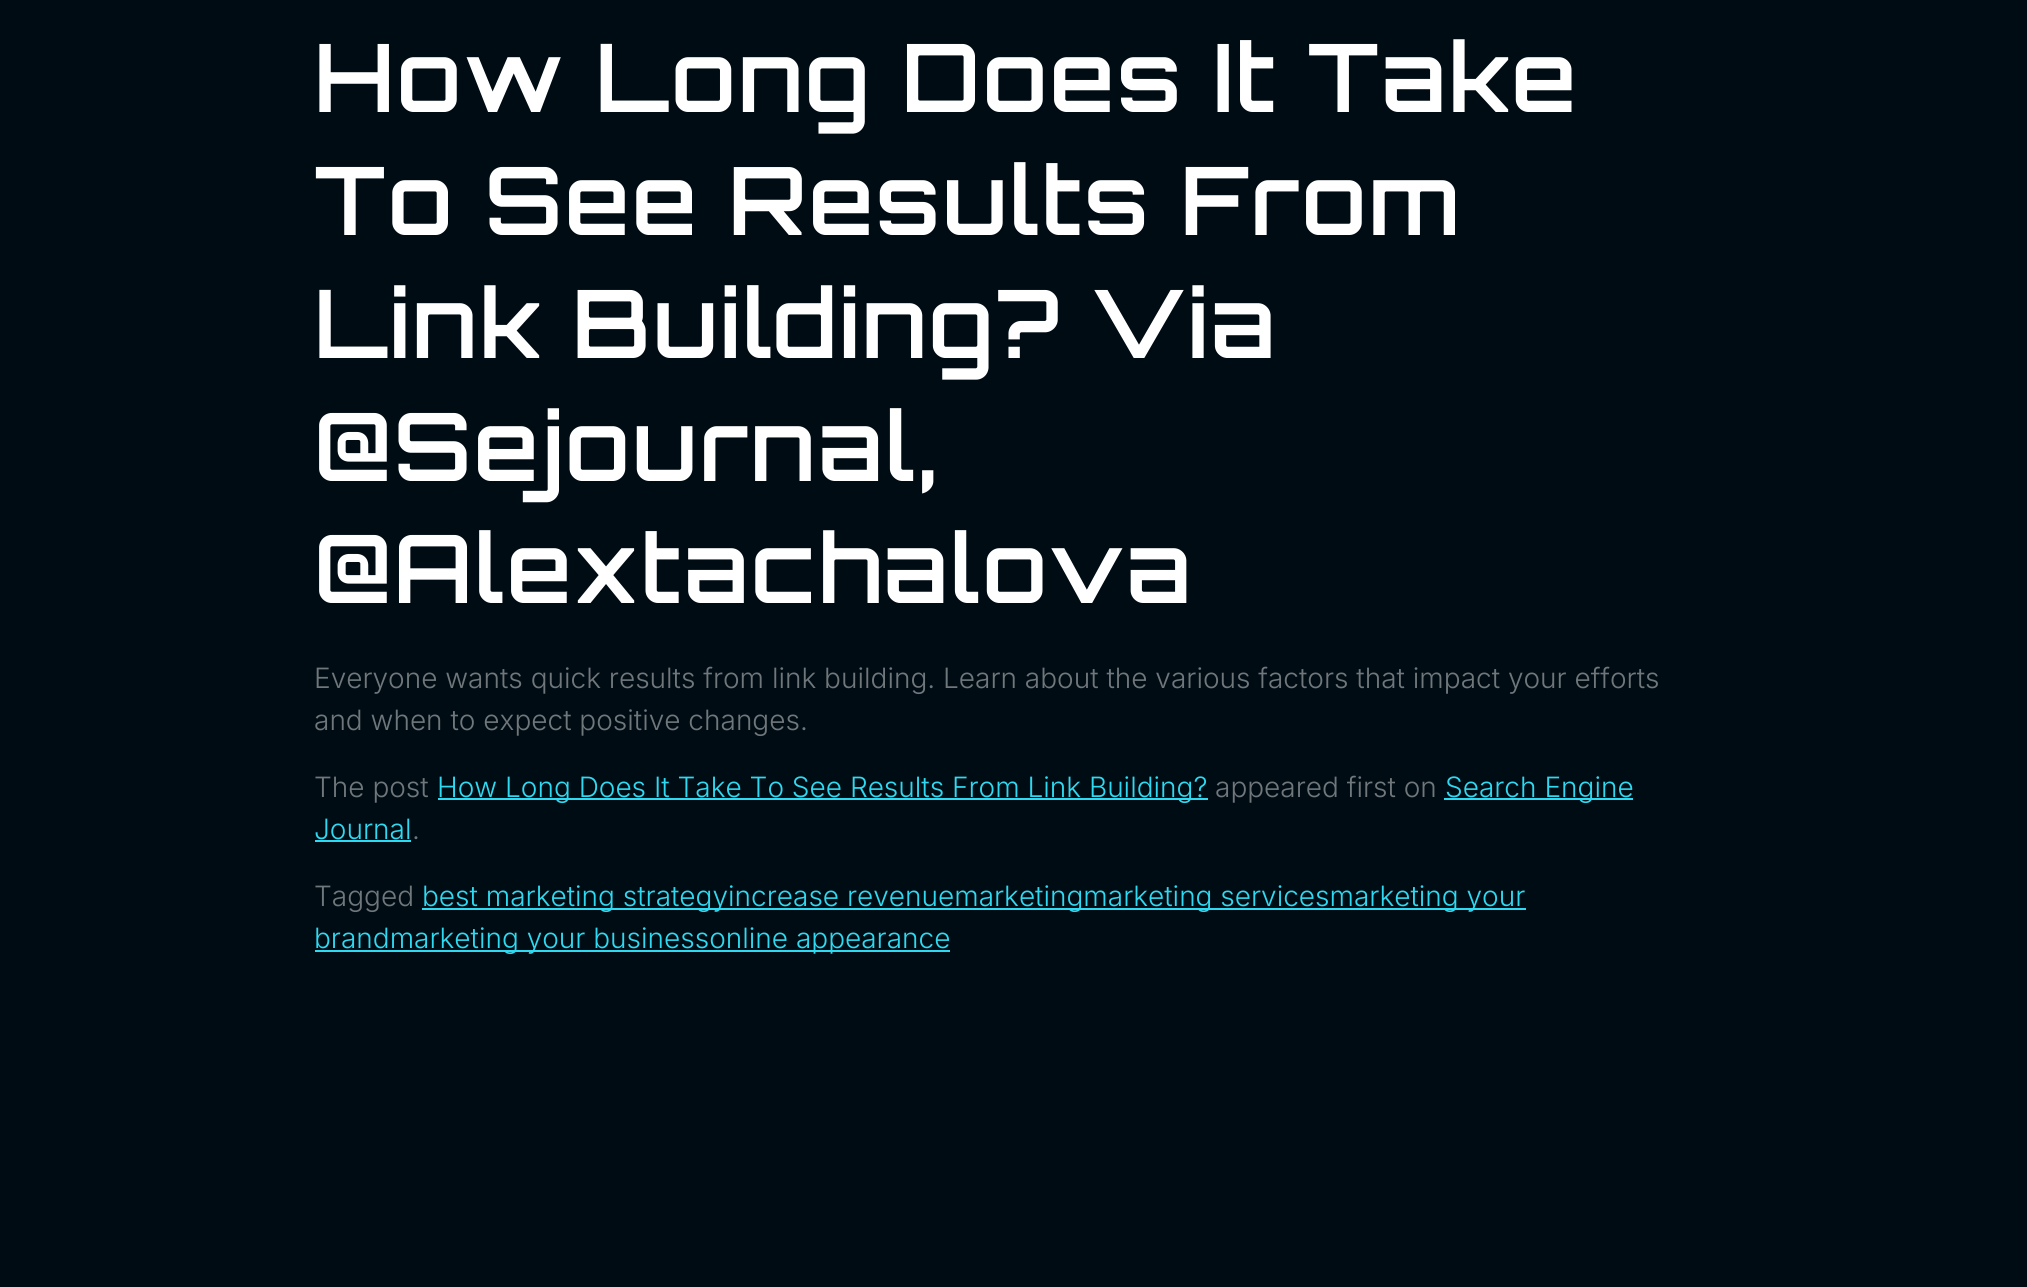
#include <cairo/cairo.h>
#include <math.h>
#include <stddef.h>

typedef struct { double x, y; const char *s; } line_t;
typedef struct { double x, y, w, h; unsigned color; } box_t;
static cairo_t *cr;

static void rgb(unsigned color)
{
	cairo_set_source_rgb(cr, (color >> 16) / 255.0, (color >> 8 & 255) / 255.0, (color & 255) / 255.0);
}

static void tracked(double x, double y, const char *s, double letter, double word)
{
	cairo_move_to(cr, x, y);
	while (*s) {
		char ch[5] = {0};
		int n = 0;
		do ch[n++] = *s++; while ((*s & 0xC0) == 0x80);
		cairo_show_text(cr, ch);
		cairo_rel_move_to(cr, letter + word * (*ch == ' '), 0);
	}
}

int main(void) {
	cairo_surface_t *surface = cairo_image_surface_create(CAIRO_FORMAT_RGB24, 2027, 1287);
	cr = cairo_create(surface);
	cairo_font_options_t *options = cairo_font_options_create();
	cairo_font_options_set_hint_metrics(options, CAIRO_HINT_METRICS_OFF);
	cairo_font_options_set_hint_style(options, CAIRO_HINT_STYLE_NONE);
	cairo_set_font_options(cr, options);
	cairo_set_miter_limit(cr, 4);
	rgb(0x000c14);
	cairo_paint(cr);
	{
		static const box_t items[] = {
			{438, 798, 770, 2, 0x2edaf1},
			{1444, 798, 189, 2, 0x2edaf1},
			{315, 840, 96, 2, 0x2edaf1},
			{422, 908, 1104, 2, 0x2edaf1},
			{315, 950, 635, 2, 0x2edaf1},
		};
		for (size_t i = 0; i < sizeof items / sizeof *items; i++) {
			rgb(items[i].color);
			cairo_rectangle(cr, items[i].x, items[i].y, items[i].w, items[i].h);
			cairo_fill(cr);
		}
	}
	cairo_select_font_face(cr, "Orbitron SemiBold", CAIRO_FONT_SLANT_NORMAL, CAIRO_FONT_WEIGHT_NORMAL);
	cairo_set_font_size(cr, 94.5);
	rgb(0xffffff);
	{
		static const line_t items[] = {
			{314, 112, "How Long Does It Take"},
			{314, 235, "To See Results From"},
			{314, 358, "Link Building? Via"},
			{314, 481, "@Sejournal,"},
			{314, 603, "@Alextachalova"},
		};
		for (size_t i = 0; i < sizeof items / sizeof *items; i++) {
			tracked(items[i].x, items[i].y, items[i].s, 1.75, 0);
		}
	}
	cairo_select_font_face(cr, "Inter Light", CAIRO_FONT_SLANT_NORMAL, CAIRO_FONT_WEIGHT_NORMAL);
	cairo_set_font_size(cr, 28);
	rgb(0x70777b);
	{
		static const line_t items[] = {
			{314, 688, "Everyone wants quick results from link building. Learn about the various factors that impact your efforts"},
			{314, 730, "and when to expect positive changes."},
			{314, 797, "The post"},
		};
		for (size_t i = 0; i < sizeof items / sizeof *items; i++) {
			cairo_move_to(cr, items[i].x, items[i].y);
			cairo_show_text(cr, items[i].s);
		}
	}
	rgb(0x2edaf1);
	cairo_move_to(cr, 437, 797);
	cairo_show_text(cr, "How Long Does It Take To See Results From Link Building?");
	rgb(0x70777b);
	cairo_move_to(cr, 1215, 797);
	cairo_show_text(cr, "appeared first on");
	rgb(0x2edaf1);
	cairo_move_to(cr, 1445, 797);
	cairo_show_text(cr, "Search Engine");
	cairo_move_to(cr, 314, 839);
	cairo_show_text(cr, "Journal");
	rgb(0x70777b);
	cairo_move_to(cr, 412, 839);
	cairo_show_text(cr, ".");
	cairo_move_to(cr, 314, 906);
	cairo_show_text(cr, "Tagged");
	rgb(0x2edaf1);
	cairo_move_to(cr, 422, 906);
	cairo_show_text(cr, "best marketing strategyincrease revenuemarketingmarketing servicesmarketing your");
	cairo_move_to(cr, 314, 948);
	cairo_show_text(cr, "brandmarketing your businessonline appearance");
	cairo_surface_write_to_png(surface, "page.png");
	cairo_font_options_destroy(options);
	cairo_destroy(cr);
	cairo_surface_destroy(surface);
	return 0;
}
